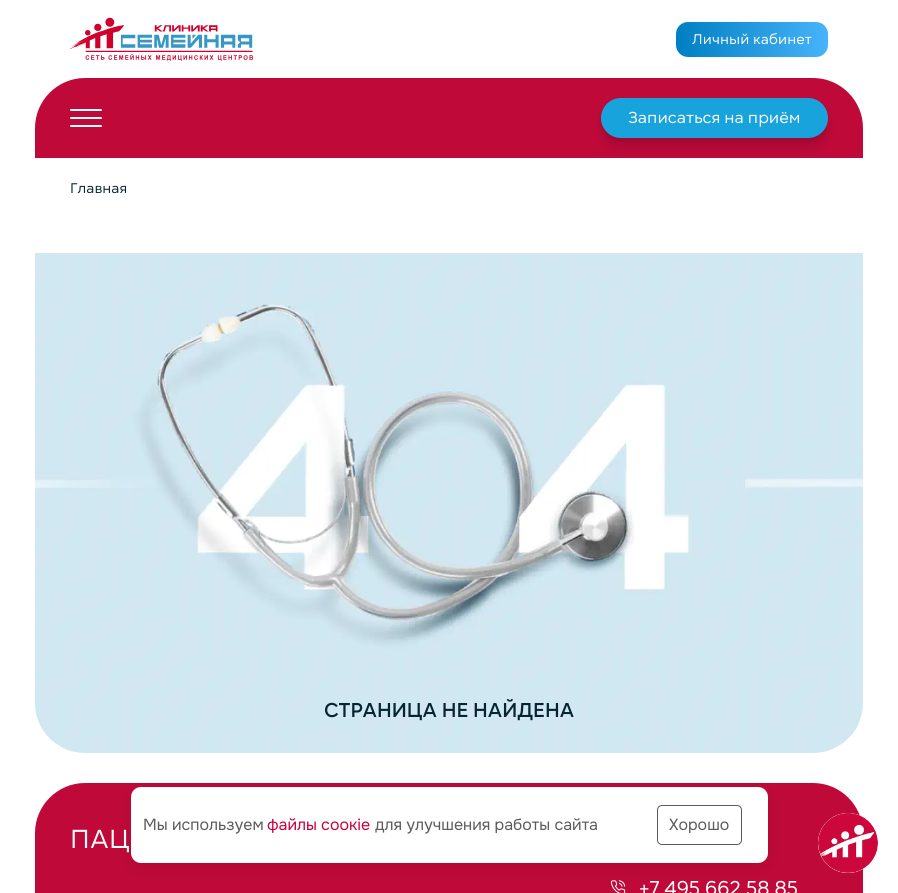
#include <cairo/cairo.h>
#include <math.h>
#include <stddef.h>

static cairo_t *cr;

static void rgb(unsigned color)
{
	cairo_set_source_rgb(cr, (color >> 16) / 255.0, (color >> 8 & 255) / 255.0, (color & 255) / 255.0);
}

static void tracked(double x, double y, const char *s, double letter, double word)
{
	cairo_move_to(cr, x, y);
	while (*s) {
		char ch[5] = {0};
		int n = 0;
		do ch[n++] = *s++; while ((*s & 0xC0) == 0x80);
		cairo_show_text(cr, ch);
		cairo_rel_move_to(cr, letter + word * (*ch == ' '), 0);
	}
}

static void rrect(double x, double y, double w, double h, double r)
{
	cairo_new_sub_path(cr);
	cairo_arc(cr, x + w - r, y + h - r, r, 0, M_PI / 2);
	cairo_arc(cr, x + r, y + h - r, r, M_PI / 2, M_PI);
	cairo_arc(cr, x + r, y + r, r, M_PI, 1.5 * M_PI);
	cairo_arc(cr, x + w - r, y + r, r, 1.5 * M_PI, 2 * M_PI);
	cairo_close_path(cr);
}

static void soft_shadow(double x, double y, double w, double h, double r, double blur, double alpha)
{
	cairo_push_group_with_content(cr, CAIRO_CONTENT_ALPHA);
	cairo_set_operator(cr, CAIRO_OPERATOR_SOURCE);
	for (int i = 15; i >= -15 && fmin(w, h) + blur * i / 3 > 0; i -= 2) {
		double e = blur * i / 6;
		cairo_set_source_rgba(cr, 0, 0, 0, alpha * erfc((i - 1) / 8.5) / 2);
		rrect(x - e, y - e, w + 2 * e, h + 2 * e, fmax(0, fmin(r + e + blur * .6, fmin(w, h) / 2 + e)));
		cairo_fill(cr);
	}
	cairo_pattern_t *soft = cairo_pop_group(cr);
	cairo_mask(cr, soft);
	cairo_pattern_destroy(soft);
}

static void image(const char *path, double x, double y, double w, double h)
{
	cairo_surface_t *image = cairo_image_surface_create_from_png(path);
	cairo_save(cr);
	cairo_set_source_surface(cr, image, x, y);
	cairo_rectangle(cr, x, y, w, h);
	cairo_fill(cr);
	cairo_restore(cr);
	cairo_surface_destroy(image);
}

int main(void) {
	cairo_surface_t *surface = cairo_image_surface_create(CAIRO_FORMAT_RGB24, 898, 893);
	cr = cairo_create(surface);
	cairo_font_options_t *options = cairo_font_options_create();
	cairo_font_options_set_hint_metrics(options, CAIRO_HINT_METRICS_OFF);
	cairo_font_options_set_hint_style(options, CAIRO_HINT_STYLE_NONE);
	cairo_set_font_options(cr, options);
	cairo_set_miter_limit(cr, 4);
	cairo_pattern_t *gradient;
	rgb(0xffffff);
	cairo_paint(cr);
	image("img/1.png", 70, 17, 183, 44);
	gradient = cairo_pattern_create_linear(676, 40, 828, 39);
	cairo_pattern_add_color_stop_rgba(gradient, 0, 0, 0.498, 0.761, 1);
	cairo_pattern_add_color_stop_rgba(gradient, 1, 0.278, 0.702, 0.98, 1);
	cairo_set_source(cr, gradient);
	cairo_pattern_destroy(gradient);
	rrect(676, 22, 152, 35, 12);
	cairo_fill(cr);
	rgb(0xbf0939);
	cairo_new_path(cr);
	cairo_move_to(cr, 85, 78);
	cairo_line_to(cr, 813, 78);
	cairo_curve_to(cr, 840.5, 78, 863, 100.5, 863, 128);
	cairo_line_to(cr, 863, 158);
	cairo_line_to(cr, 35, 158);
	cairo_line_to(cr, 35, 128);
	cairo_curve_to(cr, 35, 100.5, 57.5, 78, 85, 78);
	cairo_close_path(cr);
	cairo_fill(cr);
	rgb(0xffffff);
	rrect(70, 109, 32, 2, 1);
	cairo_fill(cr);
	rrect(70, 117, 32, 2, 1);
	cairo_fill(cr);
	rrect(70, 125, 32, 2, 1);
	cairo_fill(cr);
	rgb(0x000000);
	soft_shadow(601, 109, 227, 40, 20, 5.5, 0.09);
	soft_shadow(601, 101, 227, 40, 20, 3, 0.1);
	rgb(0x19a3dd);
	rrect(601, 98, 227, 40, 20);
	cairo_fill(cr);
	image("img/2.png", 35, 253, 828, 500);
	rgb(0xbf0939);
	cairo_new_path(cr);
	cairo_move_to(cr, 85, 783);
	cairo_line_to(cr, 813, 783);
	cairo_curve_to(cr, 840.5, 783, 863, 805.5, 863, 833);
	cairo_line_to(cr, 863, 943);
	cairo_line_to(cr, 35, 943);
	cairo_line_to(cr, 35, 833);
	cairo_curve_to(cr, 35, 805.5, 57.5, 783, 85, 783);
	cairo_close_path(cr);
	cairo_fill(cr);
	image("img/3.png", 610, 880, 16, 13);
	rgb(0xffffff);
	cairo_arc(cr, 848, 843, 30, 0, 2 * M_PI);
	cairo_fill(cr);
	image("img/4.png", 818, 813, 60, 60);
	rgb(0x000000);
	soft_shadow(131, 791, 637, 76, 10, 10, 0.08);
	rgb(0xffffff);
	rrect(131, 787, 637, 76, 10);
	cairo_fill(cr);
	rrect(657.5, 805.5, 84, 39, 4.5);
	rgb(0x5c5c5c);
	cairo_set_line_width(cr, 1);
	cairo_stroke(cr);
	cairo_select_font_face(cr, "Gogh", CAIRO_FONT_SLANT_NORMAL, CAIRO_FONT_WEIGHT_NORMAL);
	cairo_set_font_size(cr, 14);
	rgb(0xffffff);
	tracked(692, 44, "Личный кабинет", 0.1, 0);
	cairo_set_font_size(cr, 16);
	cairo_move_to(cr, 628, 123);
	cairo_show_text(cr, "Записаться на приём");
	cairo_set_font_size(cr, 14);
	rgb(0x062532);
	cairo_move_to(cr, 70, 193);
	cairo_show_text(cr, "Главная");
	cairo_select_font_face(cr, "Gogh Medium", CAIRO_FONT_SLANT_NORMAL, CAIRO_FONT_WEIGHT_NORMAL);
	cairo_set_font_size(cr, 20);
	cairo_move_to(cr, 324, 717);
	cairo_show_text(cr, "СТРАНИЦА НЕ НАЙДЕНА");
	cairo_select_font_face(cr, "Gogh", CAIRO_FONT_SLANT_NORMAL, CAIRO_FONT_WEIGHT_NORMAL);
	cairo_set_font_size(cr, 26);
	rgb(0xffffff);
	tracked(70, 848, "ПАЦ", 0.5, 0);
	cairo_set_font_size(cr, 20);
	cairo_move_to(cr, 639, 895);
	cairo_show_text(cr, "+7 495 662 58 85");
	cairo_select_font_face(cr, "Onest", CAIRO_FONT_SLANT_NORMAL, CAIRO_FONT_WEIGHT_NORMAL);
	cairo_set_font_size(cr, 16);
	rgb(0x5c5c5c);
	cairo_move_to(cr, 143, 830);
	cairo_show_text(cr, "Мы используем");
	rgb(0xca003d);
	cairo_move_to(cr, 267, 830);
	cairo_show_text(cr, "файлы соoкіе");
	rgb(0x5c5c5c);
	cairo_move_to(cr, 375, 830);
	cairo_show_text(cr, "для улучшения работы сайта");
	cairo_move_to(cr, 669, 830);
	cairo_show_text(cr, "Хорошо");
	cairo_surface_write_to_png(surface, "page.png");
	cairo_font_options_destroy(options);
	cairo_destroy(cr);
	cairo_surface_destroy(surface);
	return 0;
}
